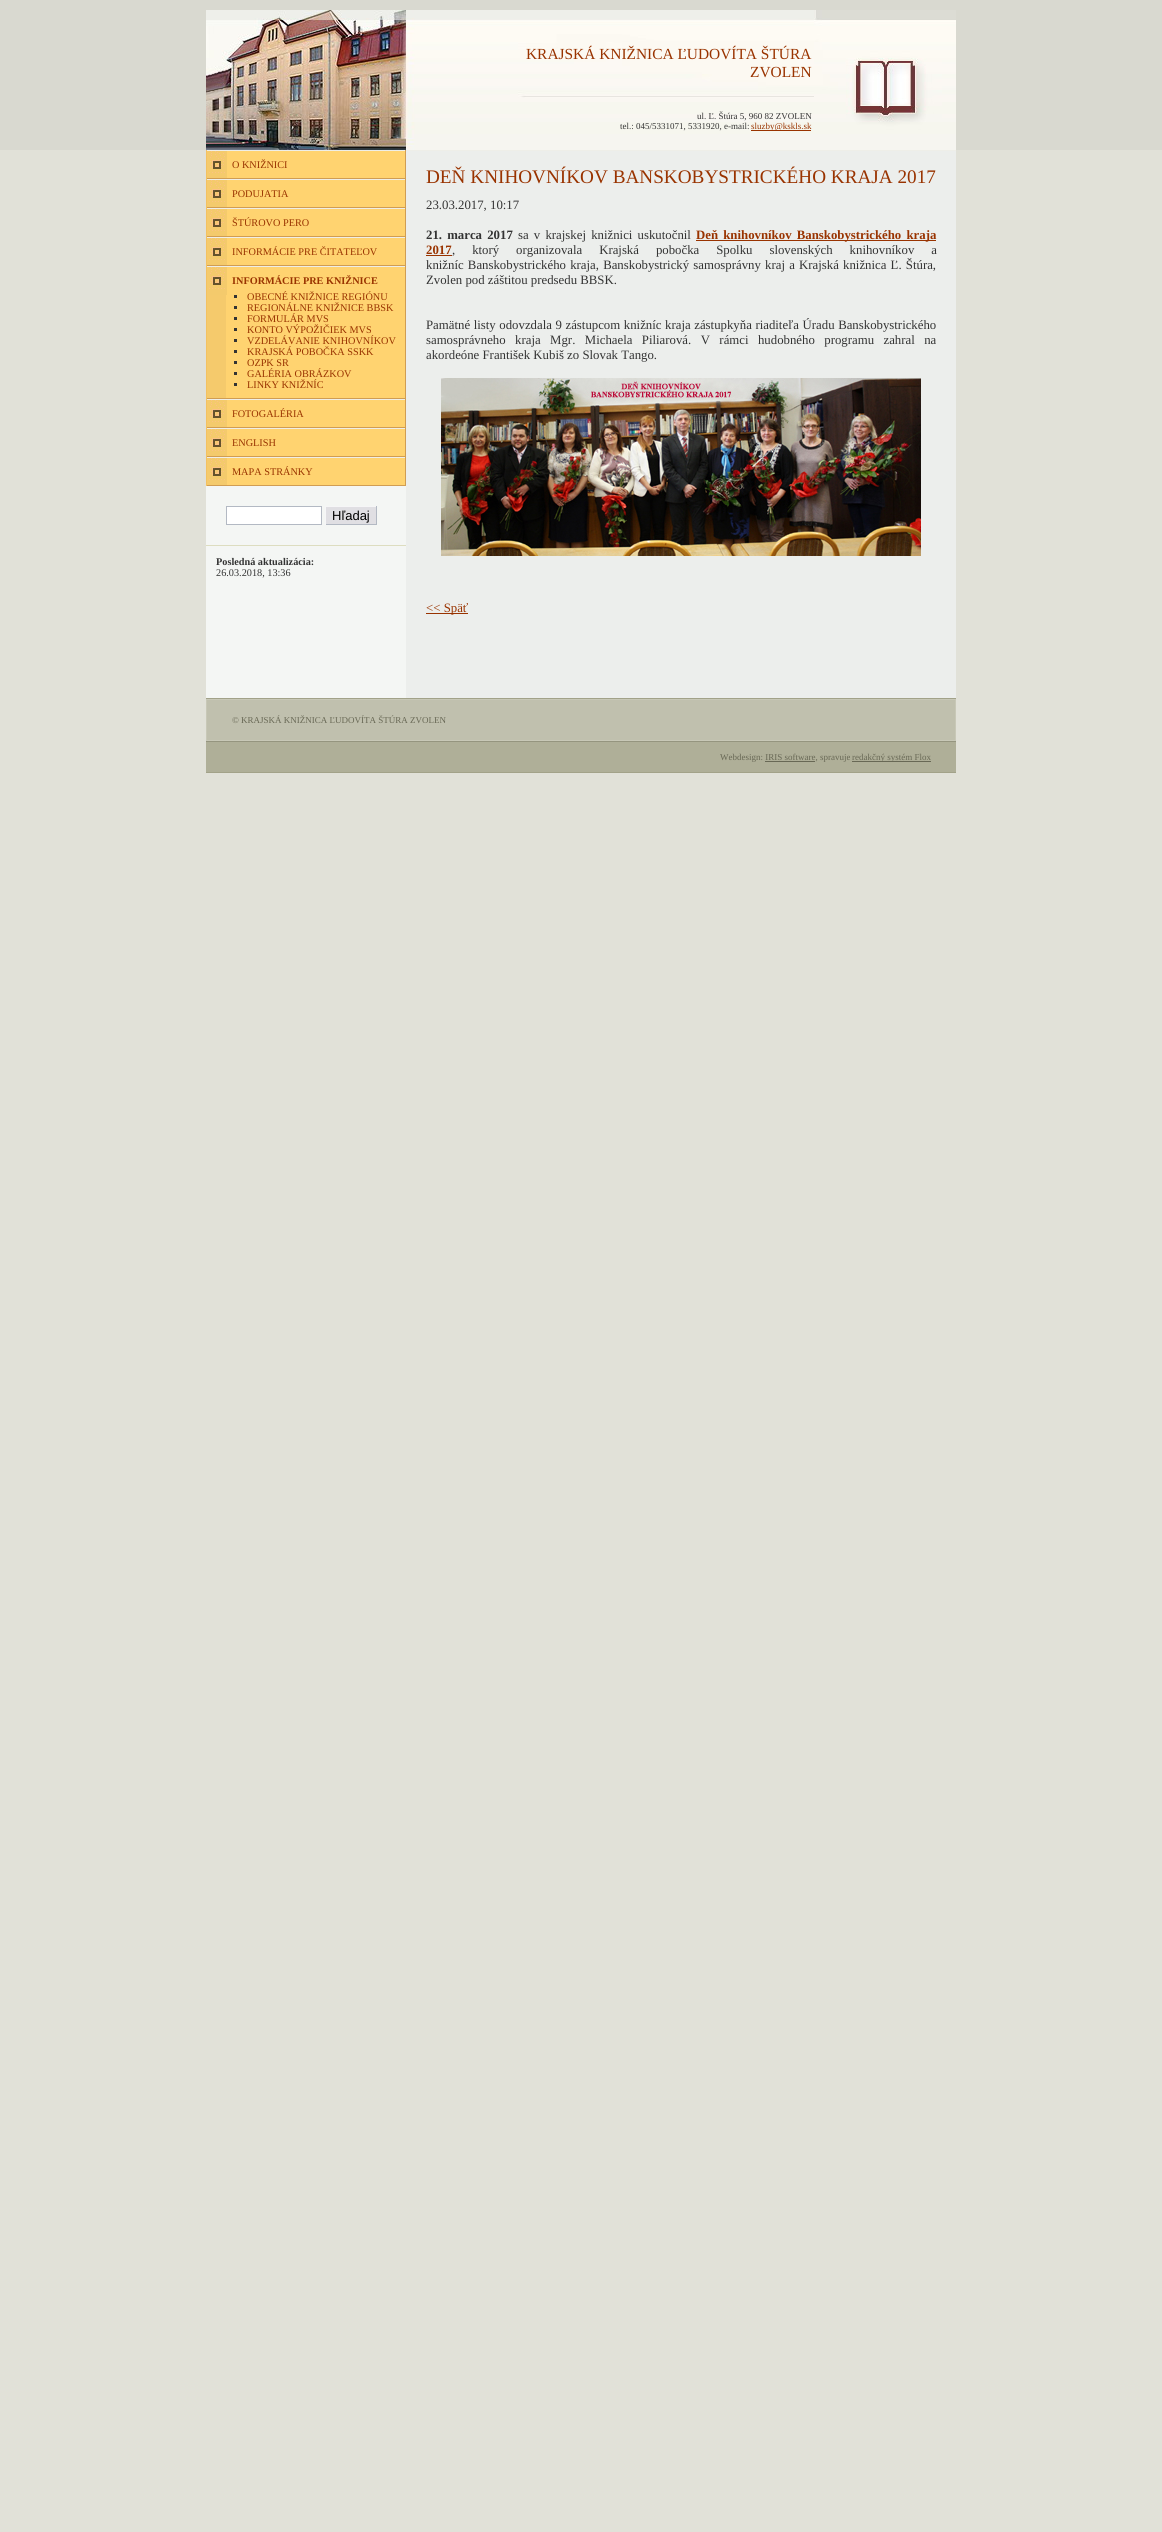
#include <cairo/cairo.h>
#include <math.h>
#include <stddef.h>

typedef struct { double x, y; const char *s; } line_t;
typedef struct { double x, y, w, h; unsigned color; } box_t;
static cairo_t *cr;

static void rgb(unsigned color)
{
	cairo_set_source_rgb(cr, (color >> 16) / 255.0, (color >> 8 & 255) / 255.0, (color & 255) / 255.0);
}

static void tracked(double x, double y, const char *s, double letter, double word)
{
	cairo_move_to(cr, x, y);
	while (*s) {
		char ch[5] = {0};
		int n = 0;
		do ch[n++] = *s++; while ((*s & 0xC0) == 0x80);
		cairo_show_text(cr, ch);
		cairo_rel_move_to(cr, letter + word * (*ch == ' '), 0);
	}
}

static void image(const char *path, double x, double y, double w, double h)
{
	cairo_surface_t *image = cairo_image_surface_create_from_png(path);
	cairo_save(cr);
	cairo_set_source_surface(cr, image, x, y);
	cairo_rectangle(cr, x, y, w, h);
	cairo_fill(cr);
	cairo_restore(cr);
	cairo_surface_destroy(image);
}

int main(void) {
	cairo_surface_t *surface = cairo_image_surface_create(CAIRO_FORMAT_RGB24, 1162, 2532);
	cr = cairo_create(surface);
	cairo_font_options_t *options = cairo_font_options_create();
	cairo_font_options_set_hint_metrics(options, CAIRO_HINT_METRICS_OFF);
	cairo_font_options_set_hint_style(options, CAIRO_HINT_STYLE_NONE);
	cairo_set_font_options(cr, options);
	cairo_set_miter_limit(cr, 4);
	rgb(0xe1e1d8);
	cairo_paint(cr);
	rgb(0xd9d9d0);
	cairo_rectangle(cr, 0, 0, 1162, 150);
	cairo_fill(cr);
	image("img/1.png", 206, 10, 750, 140);
	rgb(0x993300);
	cairo_rectangle(cr, 751, 130, 60, 1);
	cairo_fill(cr);
	image("img/2.png", 206, 151, 750, 547);
	rgb(0xffd370);
	cairo_rectangle(cr, 226, 151, 179, 334);
	cairo_fill(cr);
	rgb(0xf5ca6c);
	cairo_rectangle(cr, 207, 151, 19, 334);
	cairo_fill(cr);
	image("img/3.png", 209, 151, 18, 27);
	{
		static const box_t items[] = {
			{206, 150, 750, 1, 0xeeeee8},
			{405, 150, 1, 29, 0xd09d53},
			{206, 178, 200, 1, 0xd09d53},
			{206, 150, 1, 29, 0xf3c161},
		};
		for (size_t i = 0; i < sizeof items / sizeof *items; i++) {
			rgb(items[i].color);
			cairo_rectangle(cr, items[i].x, items[i].y, items[i].w, items[i].h);
			cairo_fill(cr);
		}
	}
	image("img/3.png", 209, 180, 18, 27);
	{
		static const box_t items[] = {
			{206, 179, 200, 1, 0xeeeee8},
			{405, 179, 1, 29, 0xd09d53},
			{206, 207, 200, 1, 0xd09d53},
			{206, 179, 1, 29, 0xf3c161},
		};
		for (size_t i = 0; i < sizeof items / sizeof *items; i++) {
			rgb(items[i].color);
			cairo_rectangle(cr, items[i].x, items[i].y, items[i].w, items[i].h);
			cairo_fill(cr);
		}
	}
	image("img/3.png", 209, 209, 18, 27);
	{
		static const box_t items[] = {
			{206, 208, 200, 1, 0xeeeee8},
			{405, 208, 1, 29, 0xd09d53},
			{206, 236, 200, 1, 0xd09d53},
			{206, 208, 1, 29, 0xf3c161},
		};
		for (size_t i = 0; i < sizeof items / sizeof *items; i++) {
			rgb(items[i].color);
			cairo_rectangle(cr, items[i].x, items[i].y, items[i].w, items[i].h);
			cairo_fill(cr);
		}
	}
	image("img/3.png", 209, 238, 18, 27);
	{
		static const box_t items[] = {
			{206, 237, 200, 1, 0xeeeee8},
			{405, 237, 1, 29, 0xd09d53},
			{206, 265, 200, 1, 0xd09d53},
			{206, 237, 1, 29, 0xf3c161},
		};
		for (size_t i = 0; i < sizeof items / sizeof *items; i++) {
			rgb(items[i].color);
			cairo_rectangle(cr, items[i].x, items[i].y, items[i].w, items[i].h);
			cairo_fill(cr);
		}
	}
	image("img/4.png", 209, 267, 18, 28);
	{
		static const box_t items[] = {
			{206, 266, 200, 1, 0xeeeee8},
			{405, 266, 1, 133, 0xd09d53},
			{206, 398, 200, 1, 0xd09d53},
			{206, 266, 1, 133, 0xf3c161},
			{234, 295, 3, 3, 0x333333},
			{234, 306, 3, 3, 0x333333},
			{234, 317, 3, 3, 0x333333},
			{234, 328, 3, 3, 0x333333},
			{234, 339, 3, 3, 0x333333},
			{234, 350, 3, 3, 0x333333},
			{234, 361, 3, 3, 0x333333},
			{234, 372, 3, 3, 0x333333},
			{234, 383, 3, 3, 0x333333},
		};
		for (size_t i = 0; i < sizeof items / sizeof *items; i++) {
			rgb(items[i].color);
			cairo_rectangle(cr, items[i].x, items[i].y, items[i].w, items[i].h);
			cairo_fill(cr);
		}
	}
	image("img/3.png", 209, 400, 18, 27);
	{
		static const box_t items[] = {
			{206, 399, 200, 1, 0xeeeee8},
			{405, 399, 1, 29, 0xd09d53},
			{206, 427, 200, 1, 0xd09d53},
			{206, 399, 1, 29, 0xf3c161},
		};
		for (size_t i = 0; i < sizeof items / sizeof *items; i++) {
			rgb(items[i].color);
			cairo_rectangle(cr, items[i].x, items[i].y, items[i].w, items[i].h);
			cairo_fill(cr);
		}
	}
	image("img/3.png", 209, 429, 18, 27);
	{
		static const box_t items[] = {
			{206, 428, 200, 1, 0xeeeee8},
			{405, 428, 1, 29, 0xd09d53},
			{206, 456, 200, 1, 0xd09d53},
			{206, 428, 1, 29, 0xf3c161},
		};
		for (size_t i = 0; i < sizeof items / sizeof *items; i++) {
			rgb(items[i].color);
			cairo_rectangle(cr, items[i].x, items[i].y, items[i].w, items[i].h);
			cairo_fill(cr);
		}
	}
	image("img/3.png", 209, 458, 18, 27);
	{
		static const box_t items[] = {
			{206, 457, 200, 1, 0xeeeee8},
			{405, 457, 1, 29, 0xd09d53},
			{206, 485, 200, 1, 0xd09d53},
			{206, 457, 1, 29, 0xf3c161},
			{206, 545, 200, 1, 0xddddc0},
		};
		for (size_t i = 0; i < sizeof items / sizeof *items; i++) {
			rgb(items[i].color);
			cairo_rectangle(cr, items[i].x, items[i].y, items[i].w, items[i].h);
			cairo_fill(cr);
		}
	}
	rgb(0xffffff);
	cairo_rectangle(cr, 226.5, 506.5, 95, 18);
	cairo_fill_preserve(cr);
	rgb(0xb3b9c3);
	cairo_set_line_width(cr, 1);
	cairo_stroke(cr);
	{
		static const box_t items[] = {
			{326, 507, 50, 17, 0xe0dfe3},
			{325, 506, 52, 1, 0xf6f6f7},
			{376, 506, 1, 19, 0xb3b9c3},
			{325, 524, 52, 1, 0xb3b9c3},
			{325, 506, 1, 19, 0xf6f6f7},
			{696, 240, 240, 1, 0x993300},
			{426, 255, 26, 1, 0x993300},
		};
		for (size_t i = 0; i < sizeof items / sizeof *items; i++) {
			rgb(items[i].color);
			cairo_rectangle(cr, items[i].x, items[i].y, items[i].w, items[i].h);
			cairo_fill(cr);
		}
	}
	image("img/5.png", 441, 378, 480, 178);
	{
		static const box_t items[] = {
			{426, 613, 42, 1, 0x993300},
			{206, 742, 750, 30, 0xafaf98},
			{206, 698, 750, 1, 0xa2a289},
			{206, 772, 750, 1, 0xa2a289},
		};
		for (size_t i = 0; i < sizeof items / sizeof *items; i++) {
			rgb(items[i].color);
			cairo_rectangle(cr, items[i].x, items[i].y, items[i].w, items[i].h);
			cairo_fill(cr);
		}
	}
	rgb(0xc0c0ae);
	cairo_rectangle(cr, 206.5, 699.5, 749, 41);
	cairo_fill_preserve(cr);
	rgb(0xc8c8b7);
	cairo_stroke(cr);
	{
		static const box_t items[] = {
			{206, 741, 750, 1, 0x95957f},
			{852, 761, 79, 1, 0x686855},
			{765, 761, 50, 1, 0x686855},
		};
		for (size_t i = 0; i < sizeof items / sizeof *items; i++) {
			rgb(items[i].color);
			cairo_rectangle(cr, items[i].x, items[i].y, items[i].w, items[i].h);
			cairo_fill(cr);
		}
	}
	cairo_select_font_face(cr, "Liberation Serif", CAIRO_FONT_SLANT_NORMAL, CAIRO_FONT_WEIGHT_NORMAL);
	cairo_set_font_size(cr, 15.4);
	rgb(0x993300);
	cairo_move_to(cr, 526, 59);
	cairo_show_text(cr, "KRAJSKÁ KNIŽNICA ĽUDOVÍTA ŠTÚRA");
	cairo_move_to(cr, 750, 77);
	cairo_show_text(cr, "ZVOLEN");
	cairo_set_font_size(cr, 9);
	rgb(0x333333);
	cairo_move_to(cr, 697, 119);
	cairo_show_text(cr, "ul. Ľ. Štúra 5, 960 82 ZVOLEN");
	cairo_move_to(cr, 620, 129);
	cairo_show_text(cr, "tel.: 045/5331071, 5331920, e-mail:");
	rgb(0x993300);
	cairo_move_to(cr, 751, 129);
	cairo_show_text(cr, "sluzby@kskls.sk");
	cairo_set_font_size(cr, 10.25);
	{
		static const line_t items[] = {
			{232, 168, "O KNIŽNICI"},
			{232, 197, "PODUJATIA"},
			{232, 226, "ŠTÚROVO PERO"},
			{232, 255, "INFORMÁCIE PRE ČITATEĽOV"},
		};
		for (size_t i = 0; i < sizeof items / sizeof *items; i++) {
			cairo_move_to(cr, items[i].x, items[i].y);
			cairo_show_text(cr, items[i].s);
		}
	}
	cairo_select_font_face(cr, "Liberation Serif", CAIRO_FONT_SLANT_NORMAL, CAIRO_FONT_WEIGHT_BOLD);
	cairo_move_to(cr, 232, 284);
	cairo_show_text(cr, "INFORMÁCIE PRE KNIŽNICE");
	cairo_select_font_face(cr, "Liberation Serif", CAIRO_FONT_SLANT_NORMAL, CAIRO_FONT_WEIGHT_NORMAL);
	{
		static const line_t items[] = {
			{247, 300, "OBECNÉ KNIŽNICE REGIÓNU"},
			{247, 311, "REGIONÁLNE KNIŽNICE BBSK"},
			{247, 322, "FORMULÁR MVS"},
			{247, 333, "KONTO VÝPOŽIČIEK MVS"},
			{247, 344, "VZDELÁVANIE KNIHOVNÍKOV"},
			{247, 355, "KRAJSKÁ POBOČKA SSKK"},
			{247, 366, "OZPK SR"},
			{247, 377, "GALÉRIA OBRÁZKOV"},
			{247, 388, "LINKY KNIŽNÍC"},
			{232, 417, "FOTOGALÉRIA"},
			{232, 446, "ENGLISH"},
			{232, 475, "MAPA STRÁNKY"},
		};
		for (size_t i = 0; i < sizeof items / sizeof *items; i++) {
			cairo_move_to(cr, items[i].x, items[i].y);
			cairo_show_text(cr, items[i].s);
		}
	}
	cairo_select_font_face(cr, "Liberation Sans", CAIRO_FONT_SLANT_NORMAL, CAIRO_FONT_WEIGHT_NORMAL);
	cairo_set_font_size(cr, 13);
	rgb(0x000000);
	cairo_move_to(cr, 332, 520);
	cairo_show_text(cr, "Hľadaj");
	cairo_select_font_face(cr, "Liberation Serif", CAIRO_FONT_SLANT_NORMAL, CAIRO_FONT_WEIGHT_BOLD);
	cairo_set_font_size(cr, 10.25);
	rgb(0x333333);
	cairo_move_to(cr, 216, 565);
	cairo_show_text(cr, "Posledná aktualizácia:");
	cairo_select_font_face(cr, "Liberation Serif", CAIRO_FONT_SLANT_NORMAL, CAIRO_FONT_WEIGHT_NORMAL);
	cairo_move_to(cr, 216, 576);
	cairo_show_text(cr, "26.03.2018, 13:36");
	cairo_set_font_size(cr, 19.2);
	rgb(0x993300);
	cairo_move_to(cr, 426, 183);
	cairo_show_text(cr, "DEŇ KNIHOVNÍKOV BANSKOBYSTRICKÉHO KRAJA 2017");
	cairo_set_font_size(cr, 12.8);
	rgb(0x333333);
	cairo_move_to(cr, 426, 209);
	cairo_show_text(cr, "23.03.2017, 10:17");
	cairo_select_font_face(cr, "Liberation Serif", CAIRO_FONT_SLANT_NORMAL, CAIRO_FONT_WEIGHT_BOLD);
	tracked(426, 239, "21. marca 2017", 0, 2);
	cairo_select_font_face(cr, "Liberation Serif", CAIRO_FONT_SLANT_NORMAL, CAIRO_FONT_WEIGHT_NORMAL);
	tracked(518, 239, "sa v krajskej knižnici uskutočnil", 0, 2);
	cairo_select_font_face(cr, "Liberation Serif", CAIRO_FONT_SLANT_NORMAL, CAIRO_FONT_WEIGHT_BOLD);
	rgb(0x993300);
	tracked(696, 239, "Deň knihovníkov Banskobystrického kraja", 0, 2);
	cairo_move_to(cr, 426, 254);
	cairo_show_text(cr, "2017");
	cairo_select_font_face(cr, "Liberation Serif", CAIRO_FONT_SLANT_NORMAL, CAIRO_FONT_WEIGHT_NORMAL);
	rgb(0x333333);
	tracked(452, 254, ", ktorý organizovala Krajská pobočka Spolku slovenských knihovníkov a", 0, 13.75);
	tracked(426, 269, "knižníc Banskobystrického kraja, Banskobystrický samosprávny kraj a Krajská knižnica Ľ. Štúra,", 0, 1);
	cairo_move_to(cr, 426, 284);
	cairo_show_text(cr, "Zvolen pod záštitou predsedu BBSK.");
	tracked(426, 329, "Pamätné listy odovzdala 9 zástupcom knižníc kraja zástupkyňa riaditeľa Úradu Banskobystrického", 0, 0.4);
	tracked(426, 344, "samosprávneho kraja Mgr. Michaela Piliarová. V rámci hudobného programu zahral na", 0, 6.25);
	cairo_move_to(cr, 426, 359);
	cairo_show_text(cr, "akordeóne František Kubiš zo Slovak Tango.");
	rgb(0x993300);
	cairo_move_to(cr, 426, 612);
	cairo_show_text(cr, "<< Späť");
	cairo_set_font_size(cr, 9);
	rgb(0x686855);
	{
		static const line_t items[] = {
			{232, 723, "© KRAJSKÁ KNIŽNICA ĽUDOVÍTA ŠTÚRA ZVOLEN"},
			{720, 760, "Webdesign: IRIS software, spravuje"},
			{852, 760, "redakčný systém Flox"},
		};
		for (size_t i = 0; i < sizeof items / sizeof *items; i++) {
			cairo_move_to(cr, items[i].x, items[i].y);
			cairo_show_text(cr, items[i].s);
		}
	}
	cairo_surface_write_to_png(surface, "page.png");
	cairo_font_options_destroy(options);
	cairo_destroy(cr);
	cairo_surface_destroy(surface);
	return 0;
}
